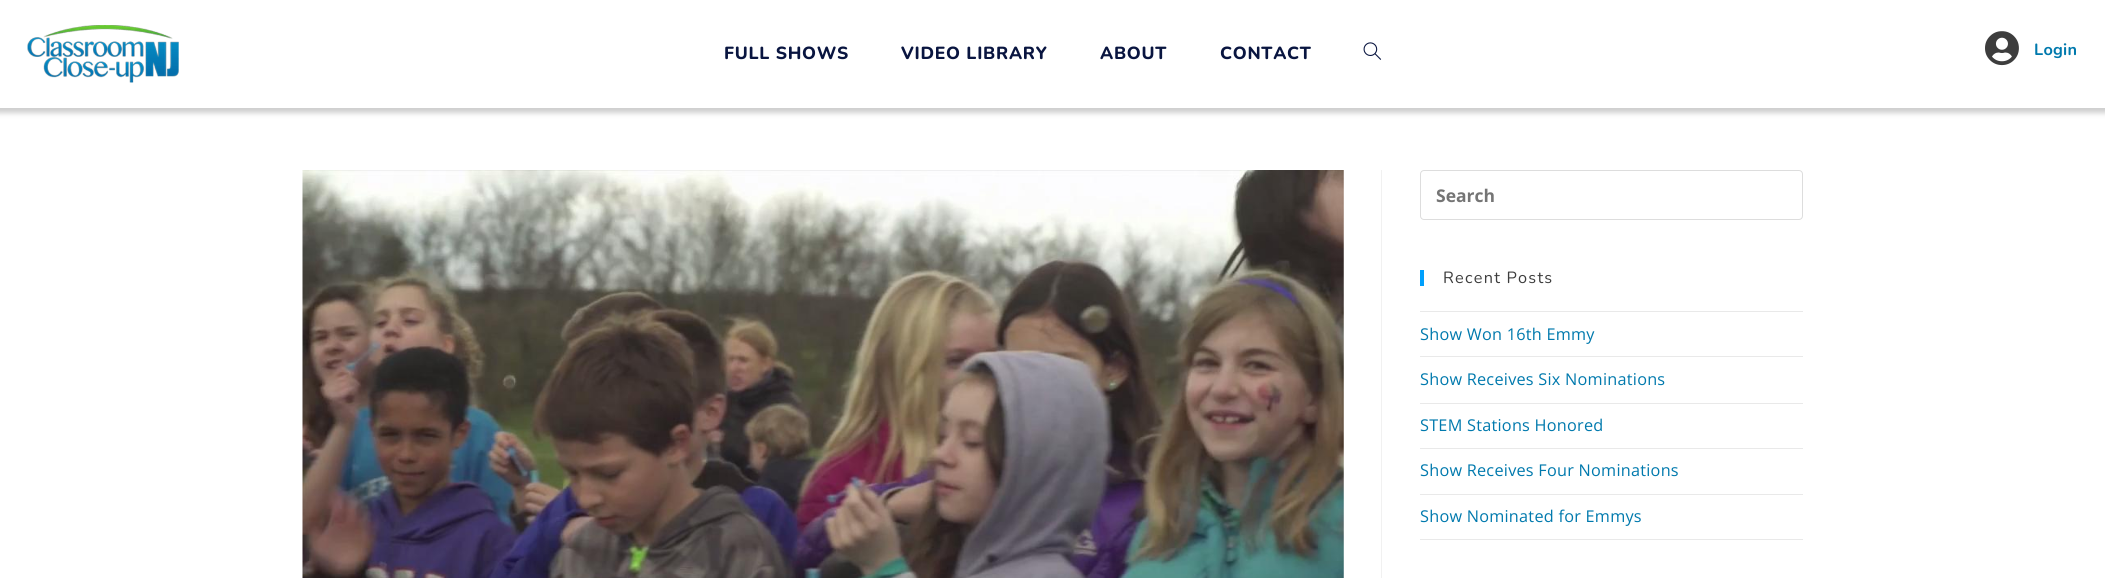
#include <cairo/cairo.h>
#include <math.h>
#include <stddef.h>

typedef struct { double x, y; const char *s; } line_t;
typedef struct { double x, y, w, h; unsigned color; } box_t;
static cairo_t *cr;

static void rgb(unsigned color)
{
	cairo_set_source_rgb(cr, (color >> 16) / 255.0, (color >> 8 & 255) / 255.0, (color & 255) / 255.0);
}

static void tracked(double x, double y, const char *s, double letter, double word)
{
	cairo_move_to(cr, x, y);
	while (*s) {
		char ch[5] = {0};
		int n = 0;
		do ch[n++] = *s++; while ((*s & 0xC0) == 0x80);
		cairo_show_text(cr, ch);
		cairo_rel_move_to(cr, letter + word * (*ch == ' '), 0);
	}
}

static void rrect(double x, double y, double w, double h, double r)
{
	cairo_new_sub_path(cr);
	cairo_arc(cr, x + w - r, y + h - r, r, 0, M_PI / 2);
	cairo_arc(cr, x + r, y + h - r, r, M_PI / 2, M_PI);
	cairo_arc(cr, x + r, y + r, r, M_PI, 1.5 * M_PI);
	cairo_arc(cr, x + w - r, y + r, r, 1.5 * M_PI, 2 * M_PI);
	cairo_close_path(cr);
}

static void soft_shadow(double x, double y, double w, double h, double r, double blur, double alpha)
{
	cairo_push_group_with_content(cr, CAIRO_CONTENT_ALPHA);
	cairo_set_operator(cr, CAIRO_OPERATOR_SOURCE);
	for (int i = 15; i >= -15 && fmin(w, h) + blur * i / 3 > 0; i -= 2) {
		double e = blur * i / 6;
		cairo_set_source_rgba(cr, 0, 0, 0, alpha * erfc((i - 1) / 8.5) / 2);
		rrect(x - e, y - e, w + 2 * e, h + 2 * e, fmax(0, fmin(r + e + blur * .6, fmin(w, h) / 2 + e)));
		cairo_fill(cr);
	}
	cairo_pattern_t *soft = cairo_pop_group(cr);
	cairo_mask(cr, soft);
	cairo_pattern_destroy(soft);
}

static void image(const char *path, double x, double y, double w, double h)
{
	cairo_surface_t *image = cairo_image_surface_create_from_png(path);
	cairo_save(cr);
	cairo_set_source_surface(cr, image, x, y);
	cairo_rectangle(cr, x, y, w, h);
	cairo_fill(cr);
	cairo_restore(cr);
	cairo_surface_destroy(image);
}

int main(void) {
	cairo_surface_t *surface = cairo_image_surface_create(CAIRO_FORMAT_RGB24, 2105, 578);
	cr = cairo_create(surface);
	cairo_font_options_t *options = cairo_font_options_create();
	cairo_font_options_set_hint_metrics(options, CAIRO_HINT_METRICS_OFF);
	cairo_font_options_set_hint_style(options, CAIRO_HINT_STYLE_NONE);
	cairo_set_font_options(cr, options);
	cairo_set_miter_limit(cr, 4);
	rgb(0xffffff);
	cairo_paint(cr);
	rgb(0xcecece);
	soft_shadow(-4, -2, 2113, 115, 0, 2.5, 1);
	rgb(0xffffff);
	cairo_rectangle(cr, 0, 0, 2105, 108);
	cairo_fill(cr);
	image("img/1.png", 27, 25, 152, 58);
	image("img/2.png", 1363, 42, 19, 18);
	image("img/3.png", 1985, 31, 34, 35);
	rgb(0xf1f1f1);
	cairo_rectangle(cr, 1381, 170, 1, 408);
	cairo_fill(cr);
	image("img/4.png", 302, 170, 1042, 408);
	rrect(1420.5, 170.5, 382, 49, 3.5);
	rgb(0xdddddd);
	cairo_set_line_width(cr, 1);
	cairo_stroke(cr);
	{
		static const box_t items[] = {
			{1420, 270, 4, 16, 0x00a0fd},
			{1420, 311, 383, 1, 0xe9e9e9},
			{1420, 356, 383, 1, 0xe9e9e9},
			{1420, 403, 383, 1, 0xe9e9e9},
			{1420, 448, 383, 1, 0xe9e9e9},
			{1420, 494, 383, 1, 0xe9e9e9},
			{1420, 539, 383, 1, 0xe9e9e9},
		};
		for (size_t i = 0; i < sizeof items / sizeof *items; i++) {
			rgb(items[i].color);
			cairo_rectangle(cr, items[i].x, items[i].y, items[i].w, items[i].h);
			cairo_fill(cr);
		}
	}
	cairo_select_font_face(cr, "Nunito ExtraBold", CAIRO_FONT_SLANT_NORMAL, CAIRO_FONT_WEIGHT_NORMAL);
	cairo_set_font_size(cr, 17.5);
	rgb(0x091540);
	{
		static const line_t items[] = {
			{724, 59, "FULL SHOWS"},
			{901, 59, "VIDEO LIBRARY"},
			{1100, 59, "ABOUT"},
			{1220, 59, "CONTACT"},
		};
		for (size_t i = 0; i < sizeof items / sizeof *items; i++) {
			tracked(items[i].x, items[i].y, items[i].s, 0.75, 0);
		}
	}
	cairo_select_font_face(cr, "Nunito", CAIRO_FONT_SLANT_NORMAL, CAIRO_FONT_WEIGHT_BOLD);
	cairo_set_font_size(cr, 16.25);
	rgb(0x0079ad);
	tracked(2034, 55, "Login", 0.25, 0);
	cairo_select_font_face(cr, "Open Sans", CAIRO_FONT_SLANT_NORMAL, CAIRO_FONT_WEIGHT_BOLD);
	cairo_set_font_size(cr, 17.5);
	rgb(0x757575);
	cairo_move_to(cr, 1436, 202);
	cairo_show_text(cr, "Search");
	cairo_select_font_face(cr, "Nunito", CAIRO_FONT_SLANT_NORMAL, CAIRO_FONT_WEIGHT_NORMAL);
	cairo_set_font_size(cr, 16.25);
	rgb(0x3d3d3d);
	tracked(1443, 283, "Recent Posts", 1.25, 0);
	cairo_select_font_face(cr, "Open Sans", CAIRO_FONT_SLANT_NORMAL, CAIRO_FONT_WEIGHT_NORMAL);
	rgb(0x0079ad);
	{
		static const line_t items[] = {
			{1420, 340, "Show Won 16th Emmy"},
			{1420, 385, "Show Receives Six Nominations"},
			{1420, 431, "STEM Stations Honored"},
			{1420, 476, "Show Receives Four Nominations"},
			{1420, 522, "Show Nominated for Emmys"},
		};
		for (size_t i = 0; i < sizeof items / sizeof *items; i++) {
			tracked(items[i].x, items[i].y, items[i].s, 0.25, 0);
		}
	}
	cairo_surface_write_to_png(surface, "page.png");
	cairo_font_options_destroy(options);
	cairo_destroy(cr);
	cairo_surface_destroy(surface);
	return 0;
}
